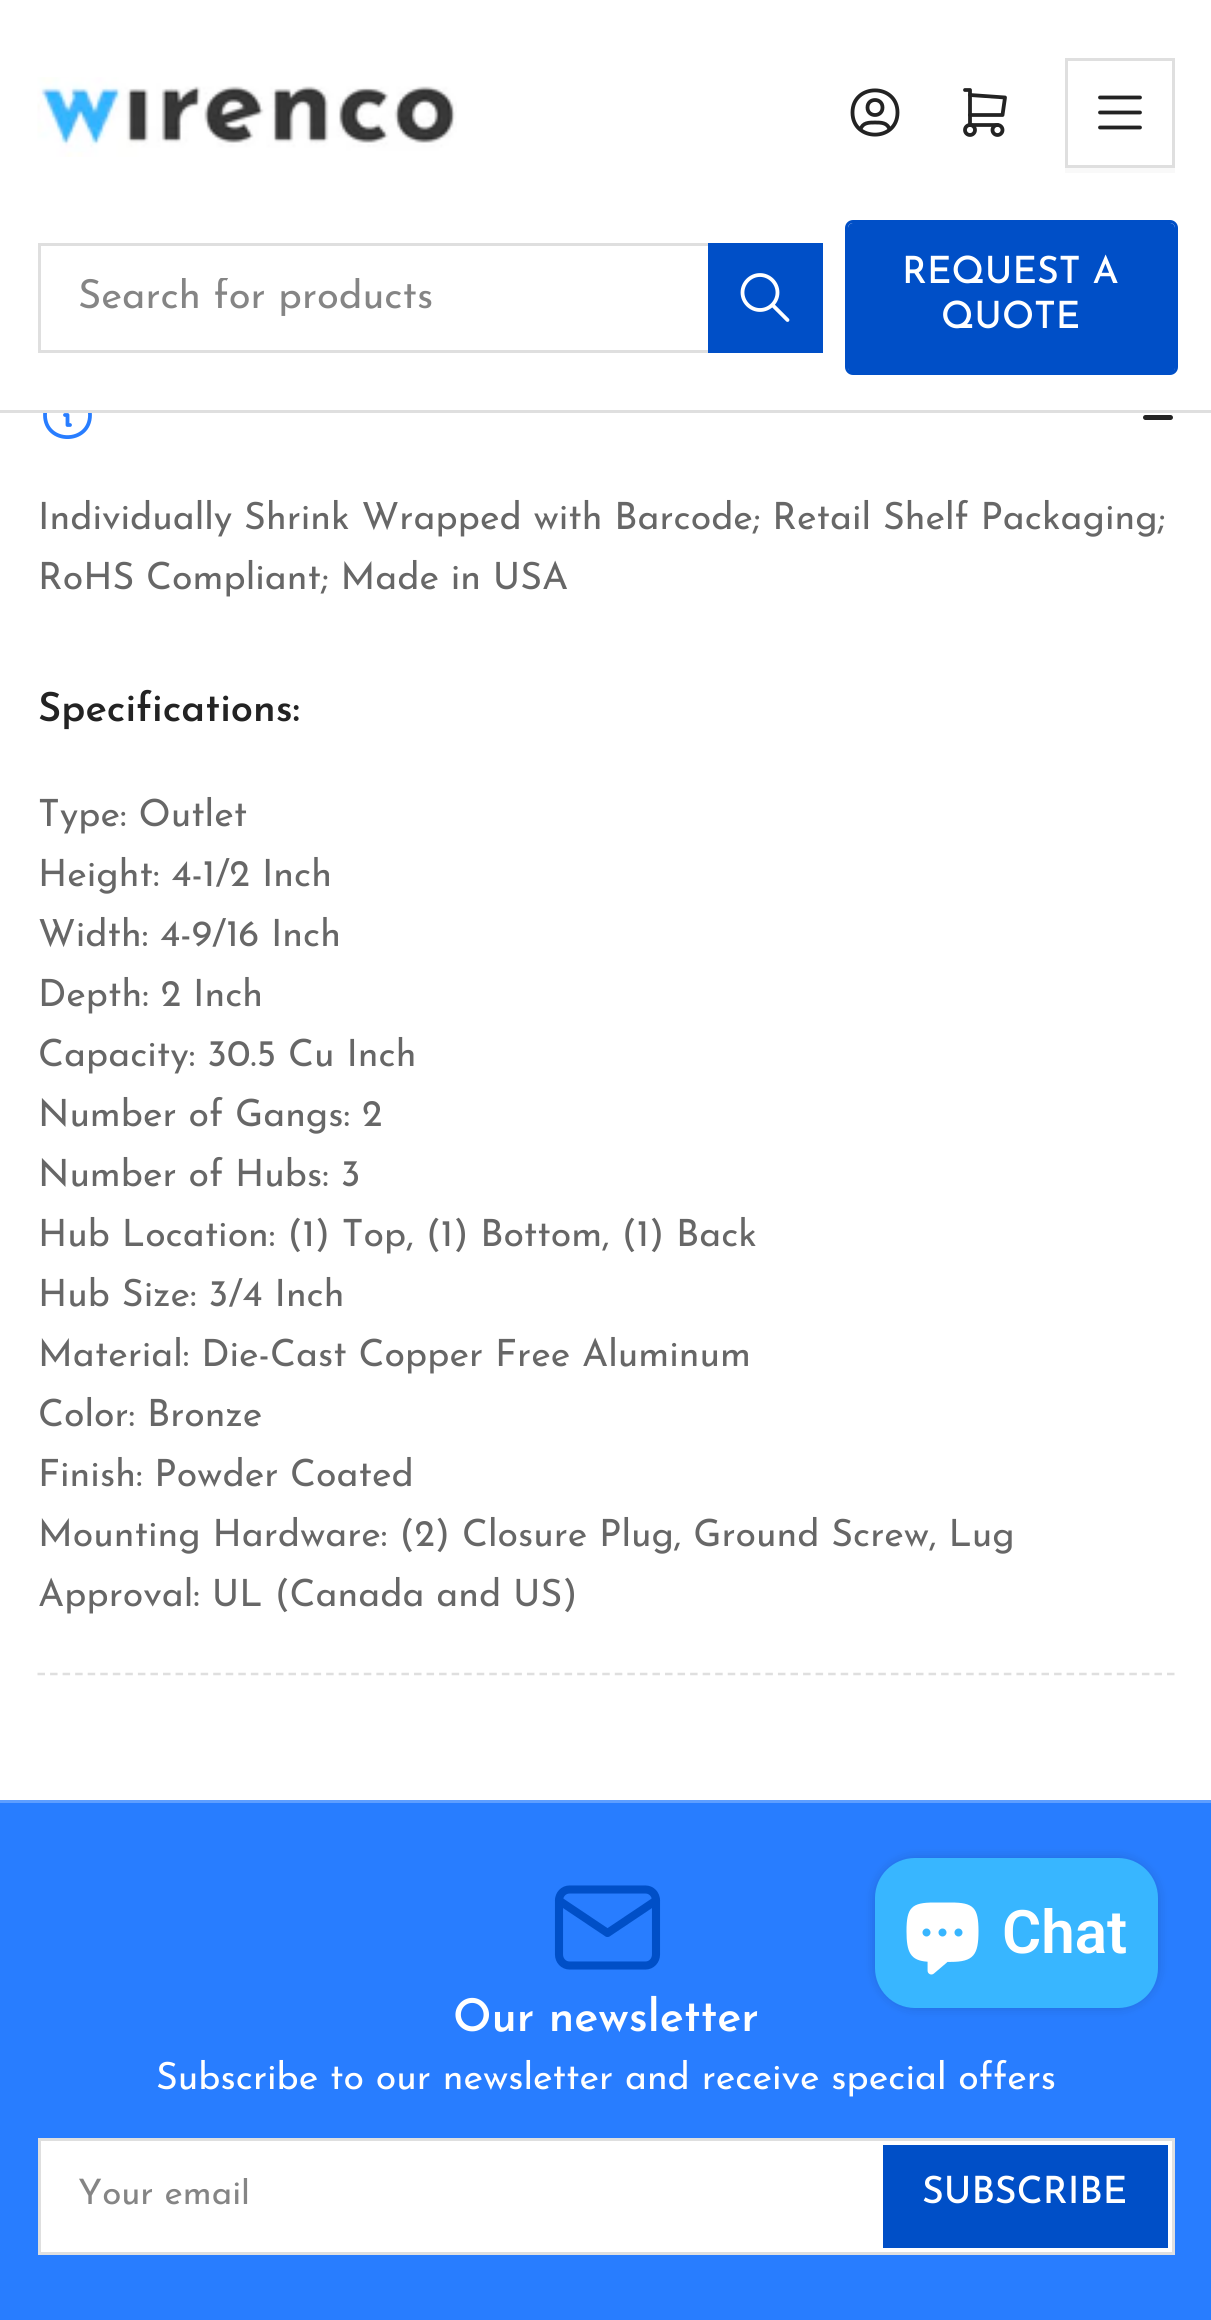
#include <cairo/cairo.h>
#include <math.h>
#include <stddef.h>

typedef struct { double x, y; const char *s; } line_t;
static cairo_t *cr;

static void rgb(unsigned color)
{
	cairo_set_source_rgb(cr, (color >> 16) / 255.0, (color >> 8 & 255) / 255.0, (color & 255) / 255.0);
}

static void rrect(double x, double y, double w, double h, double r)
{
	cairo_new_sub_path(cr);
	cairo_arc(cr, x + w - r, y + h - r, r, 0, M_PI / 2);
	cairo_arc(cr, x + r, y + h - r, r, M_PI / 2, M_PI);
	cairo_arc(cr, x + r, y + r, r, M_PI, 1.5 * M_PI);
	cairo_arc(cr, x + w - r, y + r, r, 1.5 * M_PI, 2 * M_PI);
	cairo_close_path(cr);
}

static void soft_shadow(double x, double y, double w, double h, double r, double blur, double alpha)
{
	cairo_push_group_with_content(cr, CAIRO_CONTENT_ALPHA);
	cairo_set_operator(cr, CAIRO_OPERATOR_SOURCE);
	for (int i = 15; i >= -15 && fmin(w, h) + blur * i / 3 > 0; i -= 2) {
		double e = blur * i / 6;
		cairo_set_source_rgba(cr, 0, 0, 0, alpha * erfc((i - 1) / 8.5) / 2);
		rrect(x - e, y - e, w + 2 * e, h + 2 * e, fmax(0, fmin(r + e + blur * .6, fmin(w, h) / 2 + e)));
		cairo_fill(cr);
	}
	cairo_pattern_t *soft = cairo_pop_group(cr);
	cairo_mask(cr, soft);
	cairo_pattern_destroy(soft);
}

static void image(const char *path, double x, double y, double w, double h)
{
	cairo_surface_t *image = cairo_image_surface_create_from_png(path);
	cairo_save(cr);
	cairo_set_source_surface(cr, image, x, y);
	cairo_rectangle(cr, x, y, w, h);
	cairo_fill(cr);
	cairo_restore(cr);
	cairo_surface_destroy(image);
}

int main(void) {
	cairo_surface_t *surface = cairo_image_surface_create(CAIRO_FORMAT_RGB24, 1211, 2320);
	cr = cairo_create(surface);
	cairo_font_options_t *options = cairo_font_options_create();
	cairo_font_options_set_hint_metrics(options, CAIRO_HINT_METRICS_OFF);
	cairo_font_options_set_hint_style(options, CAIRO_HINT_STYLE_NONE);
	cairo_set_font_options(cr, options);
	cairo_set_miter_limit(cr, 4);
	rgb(0xffffff);
	cairo_paint(cr);
	cairo_new_path(cr);
	cairo_move_to(cr, 45, 415);
	cairo_curve_to(cr, 45, 444.5, 90, 444.5, 90, 415);
	cairo_curve_to(cr, 90, 385.5, 45, 385.5, 45, 415);
	cairo_move_to(cr, 65, 415);
	cairo_line_to(cr, 67.5, 415);
	cairo_line_to(cr, 67.5, 425);
	cairo_line_to(cr, 70, 425);
	rgb(0x287dff);
	cairo_set_line_width(cr, 3.8);
	cairo_set_line_cap(cr, CAIRO_LINE_CAP_ROUND);
	cairo_set_line_join(cr, CAIRO_LINE_JOIN_ROUND);
	cairo_stroke(cr);
	rgb(0xdfdfdf);
	cairo_rectangle(cr, 0, 410, 1211, 3);
	cairo_fill(cr);
	rgb(0xffffff);
	cairo_rectangle(cr, 43, 391, 49, 19);
	cairo_fill(cr);
	image("img/1.png", 37, 77, 420, 80);
	cairo_new_path(cr);
	cairo_move_to(cr, 852.5, 112.5);
	cairo_curve_to(cr, 852.5, 142, 897.5, 142, 897.5, 112.5);
	cairo_curve_to(cr, 897.5, 83, 852.5, 83, 852.5, 112.5);
	cairo_move_to(cr, 867.5, 107.5);
	cairo_curve_to(cr, 867.5, 117.5, 882.5, 117.5, 882.5, 107.5);
	cairo_curve_to(cr, 882.5, 97.5, 867.5, 97.5, 867.5, 107.5);
	cairo_move_to(cr, 860.5, 129.5);
	cairo_curve_to(cr, 862.5, 122.5, 869, 122.5, 875, 122.5);
	cairo_curve_to(cr, 881, 122.5, 887.5, 122.5, 889.5, 129.5);
	rgb(0x232323);
	cairo_stroke(cr);
	image("img/2.png", 963, 88, 44, 49);
	rgb(0xf9f9f9);
	cairo_rectangle(cr, 1065, 168, 110, 5);
	cairo_fill(cr);
	cairo_rectangle(cr, 1066.5, 59.5, 107, 107);
	rgb(0xdfdfdf);
	cairo_set_line_width(cr, 3);
	cairo_set_line_cap(cr, CAIRO_LINE_CAP_BUTT);
	cairo_set_line_join(cr, CAIRO_LINE_JOIN_MITER);
	cairo_stroke(cr);
	cairo_new_path(cr);
	cairo_move_to(cr, 1100, 97.5);
	cairo_line_to(cr, 1140, 97.5);
	cairo_move_to(cr, 1100, 112.5);
	cairo_line_to(cr, 1140, 112.5);
	cairo_move_to(cr, 1100, 127.5);
	cairo_line_to(cr, 1140, 127.5);
	rgb(0x232323);
	cairo_set_line_width(cr, 3.8);
	cairo_set_line_cap(cr, CAIRO_LINE_CAP_ROUND);
	cairo_set_line_join(cr, CAIRO_LINE_JOIN_ROUND);
	cairo_stroke(cr);
	cairo_rectangle(cr, 39.5, 244.5, 782, 107);
	rgb(0xdfdfdf);
	cairo_set_line_width(cr, 3);
	cairo_set_line_cap(cr, CAIRO_LINE_CAP_BUTT);
	cairo_set_line_join(cr, CAIRO_LINE_JOIN_MITER);
	cairo_stroke(cr);
	cairo_rectangle(cr, 709.5, 244.5, 112, 107);
	rgb(0x004fc7);
	cairo_stroke(cr);
	cairo_rectangle(cr, 711, 246, 109, 104);
	cairo_fill(cr);
	cairo_new_path(cr);
	cairo_move_to(cr, 742.5, 292.5);
	cairo_curve_to(cr, 742.5, 302, 750.5, 310, 760, 310);
	cairo_curve_to(cr, 769.5, 310, 777.5, 302, 777.5, 292.5);
	cairo_curve_to(cr, 777.5, 283, 769.5, 275, 760, 275);
	cairo_curve_to(cr, 750.5, 275, 742.5, 283, 742.5, 292.5);
	cairo_move_to(cr, 787.5, 320);
	cairo_line_to(cr, 772.5, 305);
	rgb(0xffffff);
	cairo_set_line_width(cr, 3.8);
	cairo_set_line_cap(cr, CAIRO_LINE_CAP_ROUND);
	cairo_set_line_join(cr, CAIRO_LINE_JOIN_ROUND);
	cairo_stroke(cr);
	rrect(846.5, 221.5, 330, 152, 6.5);
	rgb(0x004fc7);
	cairo_set_line_width(cr, 3);
	cairo_set_line_cap(cr, CAIRO_LINE_CAP_BUTT);
	cairo_set_line_join(cr, CAIRO_LINE_JOIN_MITER);
	cairo_stroke(cr);
	rrect(848, 223, 327, 150, 5);
	cairo_fill(cr);
	cairo_new_path(cr);
	cairo_move_to(cr, 37.5, 1674);
	cairo_line_to(cr, 1175, 1674);
	rgb(0xdfdfdf);
	cairo_set_line_width(cr, 2.5);
	cairo_set_dash(cr, (double[]){7.5, 5.05}, 2, 0);
	cairo_stroke(cr);
	rgb(0x232323);
	rrect(1143, 415, 17, 5, 2.5);
	cairo_fill(cr);
	rrect(1153, 415, 20, 5, 2.5);
	cairo_fill(cr);
	rgb(0x287dff);
	cairo_rectangle(cr, 0, 1803, 1211, 517);
	cairo_fill(cr);
	rgb(0x000000);
	soft_shadow(875, 1858, 283, 150, 40, 6, 0.15);
	rgb(0x38b6ff);
	rrect(875, 1858, 283, 150, 40);
	cairo_fill(cr);
	image("img/3.png", 906, 1902, 73, 73);
	rgb(0x5e9eff);
	cairo_rectangle(cr, 0, 1800, 1211, 3);
	cairo_fill(cr);
	cairo_new_path(cr);
	cairo_move_to(cr, 559, 1900.5);
	cairo_curve_to(cr, 559, 1894.5, 563.5, 1889.5, 569.5, 1889.5);
	cairo_line_to(cr, 645.5, 1889.5);
	cairo_curve_to(cr, 651.5, 1889.5, 656, 1894.5, 656, 1900.5);
	cairo_line_to(cr, 656, 1954.5);
	cairo_curve_to(cr, 656, 1960.5, 651.5, 1965.5, 645.5, 1965.5);
	cairo_line_to(cr, 569.5, 1965.5);
	cairo_curve_to(cr, 563.5, 1965.5, 559, 1960.5, 559, 1954.5);
	cairo_close_path(cr);
	rgb(0x004fc7);
	cairo_set_line_width(cr, 8.1);
	cairo_set_line_cap(cr, CAIRO_LINE_CAP_ROUND);
	cairo_set_line_join(cr, CAIRO_LINE_JOIN_ROUND);
	cairo_set_dash(cr, NULL, 0, 0);
	cairo_stroke(cr);
	cairo_new_path(cr);
	cairo_move_to(cr, 559, 1900.5);
	cairo_line_to(cr, 607.5, 1933);
	cairo_line_to(cr, 656, 1900.5);
	cairo_stroke(cr);
	rgb(0xffffff);
	cairo_rectangle(cr, 39.5, 2139.5, 1134, 114);
	cairo_fill_preserve(cr);
	rgb(0xdfdfdf);
	cairo_set_line_width(cr, 3);
	cairo_set_line_cap(cr, CAIRO_LINE_CAP_BUTT);
	cairo_set_line_join(cr, CAIRO_LINE_JOIN_MITER);
	cairo_stroke(cr);
	cairo_rectangle(cr, 884.5, 2146.5, 282, 100);
	rgb(0x004fc7);
	cairo_stroke(cr);
	cairo_rectangle(cr, 886, 2148, 279, 97);
	cairo_fill(cr);
	cairo_save(cr);
	cairo_rectangle(cr, 78, 278, 705, 40);
	cairo_clip(cr);
	cairo_select_font_face(cr, "Josefin Sans", CAIRO_FONT_SLANT_NORMAL, CAIRO_FONT_WEIGHT_NORMAL);
	cairo_set_font_size(cr, 40);
	rgb(0x858585);
	cairo_move_to(cr, 78, 308);
	cairo_show_text(cr, "Search for products");
	cairo_restore(cr);
	cairo_select_font_face(cr, "Josefin Sans Medium", CAIRO_FONT_SLANT_NORMAL, CAIRO_FONT_WEIGHT_NORMAL);
	cairo_set_font_size(cr, 37.5);
	rgb(0xffffff);
	cairo_move_to(cr, 902, 283);
	cairo_show_text(cr, "REQUEST A");
	cairo_move_to(cr, 941, 328);
	cairo_show_text(cr, "QUOTE");
	cairo_select_font_face(cr, "Josefin Sans", CAIRO_FONT_SLANT_NORMAL, CAIRO_FONT_WEIGHT_NORMAL);
	rgb(0x676767);
	cairo_move_to(cr, 38, 529);
	cairo_show_text(cr, "Individually Shrink Wrapped with Barcode; Retail Shelf Packaging;");
	cairo_move_to(cr, 38, 589);
	cairo_show_text(cr, "RoHS Compliant; Made in USA");
	cairo_select_font_face(cr, "Josefin Sans SemiBold", CAIRO_FONT_SLANT_NORMAL, CAIRO_FONT_WEIGHT_NORMAL);
	cairo_set_font_size(cr, 40);
	rgb(0x232323);
	cairo_move_to(cr, 38, 721);
	cairo_show_text(cr, "Specifications:");
	cairo_select_font_face(cr, "Josefin Sans", CAIRO_FONT_SLANT_NORMAL, CAIRO_FONT_WEIGHT_NORMAL);
	cairo_set_font_size(cr, 37.5);
	rgb(0x676767);
	{
		static const line_t items[] = {
			{38, 826, "Type: Outlet"},
			{38, 886, "Height: 4-1/2 Inch"},
			{38, 946, "Width: 4-9/16 Inch"},
			{38, 1006, "Depth: 2 Inch"},
			{38, 1066, "Capacity: 30.5 Cu Inch"},
			{38, 1126, "Number of Gangs: 2"},
			{38, 1186, "Number of Hubs: 3"},
			{38, 1246, "Hub Location: (1) Top, (1) Bottom, (1) Back"},
			{38, 1306, "Hub Size: 3/4 Inch"},
			{38, 1366, "Material: Die-Cast Copper Free Aluminum"},
			{38, 1426, "Color: Bronze"},
			{38, 1486, "Finish: Powder Coated"},
			{38, 1546, "Mounting Hardware: (2) Closure Plug, Ground Screw, Lug"},
			{38, 1606, "Approval: UL (Canada and US)"},
		};
		for (size_t i = 0; i < sizeof items / sizeof *items; i++) {
			cairo_move_to(cr, items[i].x, items[i].y);
			cairo_show_text(cr, items[i].s);
		}
	}
	cairo_select_font_face(cr, "Roboto SemiBold", CAIRO_FONT_SLANT_NORMAL, CAIRO_FONT_WEIGHT_NORMAL);
	cairo_set_font_size(cr, 60);
	rgb(0xffffff);
	cairo_move_to(cr, 1002, 1953);
	cairo_show_text(cr, "Chat");
	cairo_select_font_face(cr, "Josefin Sans SemiBold", CAIRO_FONT_SLANT_NORMAL, CAIRO_FONT_WEIGHT_NORMAL);
	cairo_set_font_size(cr, 45);
	cairo_move_to(cr, 453, 2031);
	cairo_show_text(cr, "Our newsletter");
	cairo_select_font_face(cr, "Josefin Sans", CAIRO_FONT_SLANT_NORMAL, CAIRO_FONT_WEIGHT_NORMAL);
	cairo_set_font_size(cr, 37.5);
	cairo_move_to(cr, 156, 2089);
	cairo_show_text(cr, "Subscribe to our newsletter and receive special offers");
	cairo_save(cr);
	cairo_rectangle(cr, 78, 2178, 1057, 37);
	cairo_clip(cr);
	cairo_set_font_size(cr, 35);
	rgb(0x858585);
	cairo_move_to(cr, 78, 2204);
	cairo_show_text(cr, "Your email");
	cairo_restore(cr);
	cairo_select_font_face(cr, "Josefin Sans Medium", CAIRO_FONT_SLANT_NORMAL, CAIRO_FONT_WEIGHT_NORMAL);
	cairo_move_to(cr, 922, 2203);
	cairo_show_text(cr, "SUBSCRIBE");
	cairo_surface_write_to_png(surface, "page.png");
	cairo_font_options_destroy(options);
	cairo_destroy(cr);
	cairo_surface_destroy(surface);
	return 0;
}
